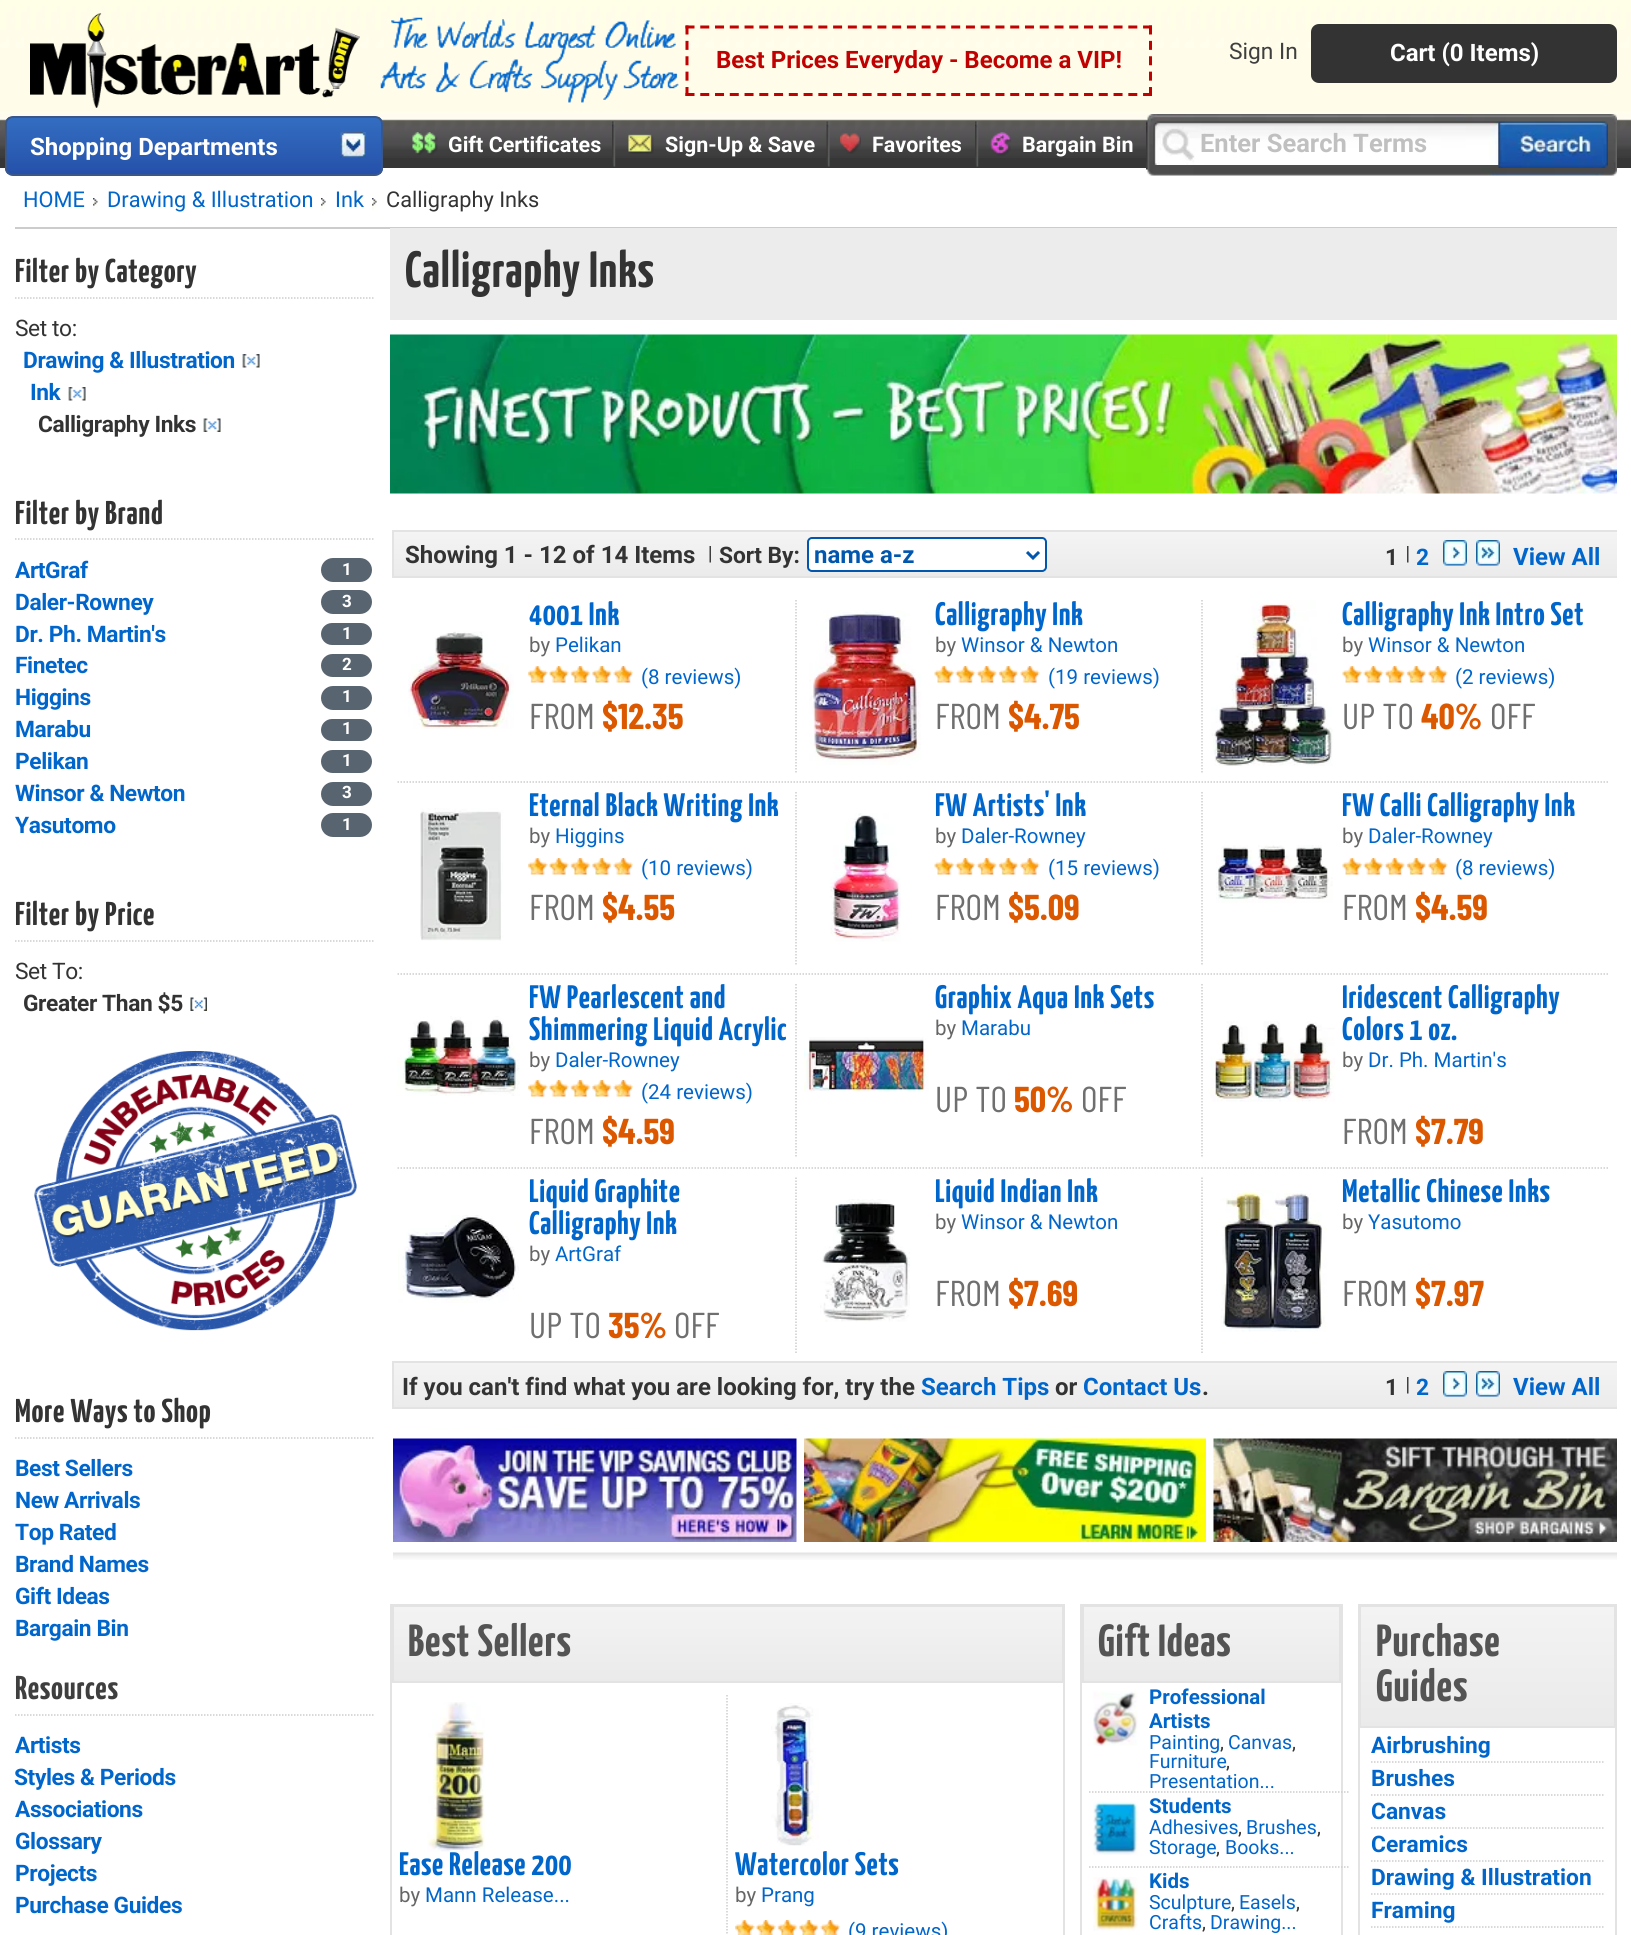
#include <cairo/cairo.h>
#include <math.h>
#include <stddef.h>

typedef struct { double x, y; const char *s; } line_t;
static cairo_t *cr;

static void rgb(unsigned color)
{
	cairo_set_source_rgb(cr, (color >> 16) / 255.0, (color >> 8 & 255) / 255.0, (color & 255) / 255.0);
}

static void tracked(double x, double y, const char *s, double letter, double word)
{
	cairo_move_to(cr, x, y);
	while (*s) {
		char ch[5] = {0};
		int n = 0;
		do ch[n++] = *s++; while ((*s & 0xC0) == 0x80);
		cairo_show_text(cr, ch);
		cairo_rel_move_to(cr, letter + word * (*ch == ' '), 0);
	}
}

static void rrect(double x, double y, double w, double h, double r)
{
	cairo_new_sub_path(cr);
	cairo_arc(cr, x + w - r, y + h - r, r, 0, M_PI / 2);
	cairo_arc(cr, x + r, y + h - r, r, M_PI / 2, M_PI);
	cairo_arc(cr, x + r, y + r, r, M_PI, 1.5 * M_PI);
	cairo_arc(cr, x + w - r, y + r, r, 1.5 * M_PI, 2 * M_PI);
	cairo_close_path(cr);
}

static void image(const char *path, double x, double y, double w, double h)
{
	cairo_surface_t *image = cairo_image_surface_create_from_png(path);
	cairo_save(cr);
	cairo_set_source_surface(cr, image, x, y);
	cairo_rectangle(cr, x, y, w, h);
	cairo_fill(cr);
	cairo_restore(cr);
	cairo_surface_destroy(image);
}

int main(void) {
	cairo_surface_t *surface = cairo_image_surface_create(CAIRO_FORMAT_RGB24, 1631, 1935);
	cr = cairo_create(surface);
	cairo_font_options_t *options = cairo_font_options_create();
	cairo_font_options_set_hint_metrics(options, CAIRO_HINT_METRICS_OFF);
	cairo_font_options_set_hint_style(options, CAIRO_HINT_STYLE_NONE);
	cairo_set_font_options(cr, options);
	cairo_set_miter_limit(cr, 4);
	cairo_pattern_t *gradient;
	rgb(0xffffff);
	cairo_paint(cr);
	rgb(0x363636);
	cairo_rectangle(cr, 0, 158, 1631, 10);
	cairo_fill(cr);
	image("img/1.png", 0, 0, 1631, 158);
	image("img/2.png", 30, 13, 330, 95);
	image("img/3.png", 380, 17, 299, 86);
	cairo_new_path(cr);
	cairo_move_to(cr, 685.5, 27);
	cairo_line_to(cr, 1152, 27);
	rgb(0xc00101);
	cairo_set_line_width(cr, 3);
	cairo_set_dash(cr, (double[]){9, 5.76}, 2, 0);
	cairo_stroke(cr);
	cairo_new_path(cr);
	cairo_move_to(cr, 1150.5, 25.5);
	cairo_line_to(cr, 1150.5, 96);
	cairo_set_dash(cr, (double[]){9, 6.38}, 2, 0);
	cairo_stroke(cr);
	cairo_new_path(cr);
	cairo_move_to(cr, 685.5, 94.5);
	cairo_line_to(cr, 1152, 94.5);
	cairo_set_dash(cr, (double[]){9, 5.76}, 2, 0);
	cairo_stroke(cr);
	cairo_new_path(cr);
	cairo_move_to(cr, 687, 25.5);
	cairo_line_to(cr, 687, 96);
	cairo_set_dash(cr, (double[]){9, 6.38}, 2, 0);
	cairo_stroke(cr);
	rgb(0x333333);
	rrect(1311, 24, 306, 59, 8);
	cairo_fill(cr);
	cairo_save(cr);
	rrect(5, 116, 378, 60, 8);
	cairo_clip(cr);
	gradient = cairo_pattern_create_linear(194, 117, 194, 174);
	cairo_pattern_add_color_stop_rgba(gradient, 0, 0.2, 0.431, 0.757, 1);
	cairo_pattern_add_color_stop_rgba(gradient, 0.66, 0.165, 0.357, 0.698, 1);
	cairo_pattern_add_color_stop_rgba(gradient, 1, 0.145, 0.314, 0.663, 1);
	cairo_set_source(cr, gradient);
	cairo_pattern_destroy(gradient);
	cairo_rectangle(cr, 5, 117, 378, 57);
	cairo_fill(cr);
	cairo_restore(cr);
	rrect(6, 117, 376, 58, 7);
	rgb(0x3a5789);
	cairo_set_line_width(cr, 2);
	cairo_set_dash(cr, NULL, 0, 0);
	cairo_stroke(cr);
	image("img/4.png", 340, 132, 26, 26);
	image("img/5.png", 412, 132, 26, 23);
	image("img/6.png", 612, 121, 4, 46);
	image("img/7.png", 628, 134, 26, 20);
	image("img/8.png", 826, 121, 4, 46);
	image("img/9.png", 840, 133, 21, 21);
	image("img/10.png", 975, 121, 4, 46);
	image("img/11.png", 990, 132, 21, 24);
	image("img/12.png", 1146, 114, 471, 62);
	image("img/13.png", 1153, 121, 346, 44);
	image("img/14.png", 1498, 121, 110, 47);
	rgb(0xcccccc);
	cairo_rectangle(cr, 15, 227, 1602, 2);
	cairo_fill(cr);
	image("img/15.png", 93, 198, 5, 12);
	image("img/16.png", 321, 198, 5, 12);
	image("img/16.png", 372, 198, 5, 12);
	cairo_new_path(cr);
	cairo_move_to(cr, 15, 298);
	cairo_line_to(cr, 375, 298);
	cairo_set_line_width(cr, 1.5);
	cairo_set_dash(cr, (double[]){1.5, 1.5}, 2, 0);
	cairo_stroke(cr);
	image("img/17.png", 242, 354, 18, 14);
	image("img/17.png", 68, 387, 18, 14);
	image("img/18.png", 203, 418, 18, 14);
	cairo_new_path(cr);
	cairo_move_to(cr, 15, 539);
	cairo_line_to(cr, 375, 539);
	cairo_stroke(cr);
	rgb(0x586571);
	rrect(321, 558, 51, 24, 12);
	cairo_fill(cr);
	rrect(321, 590, 51, 24, 12);
	cairo_fill(cr);
	rrect(321, 623, 51, 22, 11);
	cairo_fill(cr);
	rrect(321, 654, 51, 23, 11.5);
	cairo_fill(cr);
	rrect(321, 686, 51, 24, 12);
	cairo_fill(cr);
	rrect(321, 719, 51, 22, 11);
	cairo_fill(cr);
	rrect(321, 750, 51, 23, 11.5);
	cairo_fill(cr);
	rrect(321, 782, 51, 24, 12);
	cairo_fill(cr);
	rrect(321, 813, 51, 24, 12);
	cairo_fill(cr);
	cairo_new_path(cr);
	cairo_move_to(cr, 15, 941);
	cairo_line_to(cr, 375, 941);
	rgb(0xcccccc);
	cairo_stroke(cr);
	image("img/19.png", 190, 997, 17, 14);
	image("img/20.png", 34, 1050, 323, 281);
	cairo_new_path(cr);
	cairo_move_to(cr, 15, 1438);
	cairo_line_to(cr, 375, 1438);
	cairo_stroke(cr);
	cairo_new_path(cr);
	cairo_move_to(cr, 15, 1715);
	cairo_line_to(cr, 375, 1715);
	cairo_stroke(cr);
	rgb(0xececec);
	cairo_rectangle(cr, 390, 228, 1227, 92);
	cairo_fill(cr);
	image("img/21.png", 390, 334, 1227, 160);
	gradient = cairo_pattern_create_linear(1007, 531, 1007, 576);
	cairo_pattern_add_color_stop_rgba(gradient, 0, 0.957, 0.957, 0.957, 1);
	cairo_pattern_add_color_stop_rgba(gradient, 1, 0.922, 0.922, 0.922, 1);
	cairo_set_source(cr, gradient);
	cairo_pattern_destroy(gradient);
	cairo_rectangle(cr, 394, 532, 1223, 44);
	cairo_fill(cr);
	cairo_save(cr);
	cairo_rectangle(cr, 375, 228, 1242, 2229);
	cairo_clip(cr);
	cairo_rectangle(cr, 393, 531, 1228, 46);
	rgb(0xe3e3e3);
	cairo_set_line_width(cr, 2);
	cairo_set_dash(cr, NULL, 0, 0);
	cairo_stroke(cr);
	cairo_restore(cr);
	image("img/22.png", 709, 546, 2, 17);
	rgb(0xffffff);
	rrect(808, 538, 238, 33, 4);
	cairo_fill_preserve(cr);
	rgb(0x0156ad);
	cairo_set_line_width(cr, 2);
	cairo_set_dash(cr, NULL, 0, 0);
	cairo_stroke(cr);
	cairo_new_path(cr);
	cairo_move_to(cr, 1027, 552);
	cairo_line_to(cr, 1033, 558);
	cairo_line_to(cr, 1039, 552);
	cairo_set_line_width(cr, 3);
	cairo_stroke(cr);
	image("img/23.png", 1407, 546, 2, 17);
	image("img/24.png", 1443, 540, 24, 26);
	image("img/25.png", 1476, 540, 24, 26);
	cairo_new_path(cr);
	cairo_move_to(cr, 796, 600);
	cairo_line_to(cr, 796, 772.5);
	rgb(0xcccccc);
	cairo_set_line_width(cr, 1.5);
	cairo_set_dash(cr, (double[]){1.5, 1.5}, 2, 0);
	cairo_stroke(cr);
	image("img/26.png", 408, 631, 106, 98);
	image("img/27.png", 528, 666, 105, 17);
	cairo_new_path(cr);
	cairo_move_to(cr, 1202, 600);
	cairo_line_to(cr, 1202, 772.5);
	cairo_stroke(cr);
	image("img/28.png", 809, 610, 112, 155);
	image("img/29.png", 934, 666, 106, 17);
	image("img/30.png", 1211, 600, 122, 166);
	image("img/31.png", 1342, 666, 106, 17);
	cairo_new_path(cr);
	cairo_move_to(cr, 397.5, 782);
	cairo_line_to(cr, 1609.5, 782);
	cairo_stroke(cr);
	cairo_new_path(cr);
	cairo_move_to(cr, 796, 792);
	cairo_line_to(cr, 796, 964.5);
	cairo_stroke(cr);
	image("img/32.png", 420, 808, 83, 133);
	image("img/27.png", 528, 858, 105, 17);
	cairo_new_path(cr);
	cairo_move_to(cr, 1202, 792);
	cairo_line_to(cr, 1202, 964.5);
	cairo_stroke(cr);
	image("img/33.png", 830, 813, 71, 129);
	image("img/29.png", 934, 858, 106, 17);
	image("img/34.png", 1216, 845, 117, 58);
	image("img/31.png", 1342, 858, 106, 17);
	cairo_new_path(cr);
	cairo_move_to(cr, 397.5, 974);
	cairo_line_to(cr, 1609.5, 974);
	cairo_stroke(cr);
	cairo_new_path(cr);
	cairo_move_to(cr, 796, 984);
	cairo_line_to(cr, 796, 1158);
	cairo_stroke(cr);
	image("img/35.png", 397, 1016, 123, 80);
	image("img/27.png", 528, 1080, 105, 17);
	cairo_new_path(cr);
	cairo_move_to(cr, 1202, 984);
	cairo_line_to(cr, 1202, 1158);
	cairo_stroke(cr);
	image("img/36.png", 804, 1037, 125, 55);
	image("img/37.png", 1210, 1021, 125, 81);
	cairo_new_path(cr);
	cairo_move_to(cr, 397.5, 1168);
	cairo_line_to(cr, 1609.5, 1168);
	cairo_stroke(cr);
	cairo_new_path(cr);
	cairo_move_to(cr, 796, 1177.5);
	cairo_line_to(cr, 796, 1353);
	cairo_stroke(cr);
	image("img/38.png", 398, 1215, 121, 88);
	cairo_new_path(cr);
	cairo_move_to(cr, 1202, 1177.5);
	cairo_line_to(cr, 1202, 1353);
	cairo_stroke(cr);
	image("img/39.png", 820, 1199, 90, 123);
	image("img/40.png", 1221, 1190, 106, 142);
	gradient = cairo_pattern_create_linear(1007, 1362, 1007, 1407);
	cairo_pattern_add_color_stop_rgba(gradient, 0, 0.957, 0.957, 0.957, 1);
	cairo_pattern_add_color_stop_rgba(gradient, 1, 0.922, 0.922, 0.922, 1);
	cairo_set_source(cr, gradient);
	cairo_pattern_destroy(gradient);
	cairo_rectangle(cr, 394, 1363, 1223, 44);
	cairo_fill(cr);
	cairo_save(cr);
	cairo_rectangle(cr, 375, 228, 1242, 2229);
	cairo_clip(cr);
	cairo_rectangle(cr, 393, 1362, 1228, 46);
	rgb(0xe3e3e3);
	cairo_set_line_width(cr, 2);
	cairo_set_dash(cr, NULL, 0, 0);
	cairo_stroke(cr);
	cairo_restore(cr);
	image("img/23.png", 1407, 1377, 2, 17);
	image("img/24.png", 1443, 1371, 24, 26);
	image("img/25.png", 1476, 1371, 24, 26);
	image("img/41.png", 393, 1552, 1224, 8);
	image("img/42.png", 393, 1438, 404, 104);
	image("img/43.png", 804, 1438, 402, 104);
	image("img/44.png", 1213, 1438, 404, 104);
	cairo_rectangle(cr, 391, 1605, 673, 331);
	rgb(0xe3e3e3);
	cairo_set_line_width(cr, 2);
	cairo_set_dash(cr, NULL, 0, 0);
	cairo_stroke(cr);
	gradient = cairo_pattern_create_linear(728, 1607, 728, 1682);
	cairo_pattern_add_color_stop_rgba(gradient, 0.01, 0.953, 0.953, 0.953, 1);
	cairo_pattern_add_color_stop_rgba(gradient, 1, 0.918, 0.918, 0.918, 1);
	cairo_set_source(cr, gradient);
	cairo_pattern_destroy(gradient);
	cairo_rectangle(cr, 394, 1607, 668, 74);
	cairo_fill(cr);
	cairo_rectangle(cr, 393, 1606, 670, 76);
	rgb(0xe3e3e3);
	cairo_stroke(cr);
	cairo_new_path(cr);
	cairo_move_to(cr, 727, 1695);
	cairo_line_to(cr, 727, 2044.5);
	rgb(0xcccccc);
	cairo_set_line_width(cr, 1.5);
	cairo_set_dash(cr, (double[]){1.5, 1.5}, 2, 0);
	cairo_stroke(cr);
	image("img/45.png", 427, 1702, 58, 150);
	image("img/46.png", 771, 1703, 48, 143);
	image("img/47.png", 735, 1920, 105, 15);
	cairo_rectangle(cr, 1081, 1605, 261, 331);
	rgb(0xe3e3e3);
	cairo_set_line_width(cr, 2);
	cairo_set_dash(cr, NULL, 0, 0);
	cairo_stroke(cr);
	gradient = cairo_pattern_create_linear(1211, 1607, 1211, 1682);
	cairo_pattern_add_color_stop_rgba(gradient, 0.01, 0.953, 0.953, 0.953, 1);
	cairo_pattern_add_color_stop_rgba(gradient, 1, 0.918, 0.918, 0.918, 1);
	cairo_set_source(cr, gradient);
	cairo_pattern_destroy(gradient);
	cairo_rectangle(cr, 1084, 1607, 255, 74);
	cairo_fill(cr);
	cairo_rectangle(cr, 1083, 1606, 257, 76);
	rgb(0xe3e3e3);
	cairo_stroke(cr);
	cairo_new_path(cr);
	cairo_move_to(cr, 1089, 1792);
	cairo_line_to(cr, 1348.5, 1792);
	rgb(0xcccccc);
	cairo_set_line_width(cr, 1.5);
	cairo_set_dash(cr, (double[]){1.5, 1.5}, 2, 0);
	cairo_stroke(cr);
	image("img/48.png", 1093, 1691, 45, 55);
	cairo_new_path(cr);
	cairo_move_to(cr, 1089, 1867);
	cairo_line_to(cr, 1348.5, 1867);
	cairo_stroke(cr);
	image("img/49.png", 1093, 1801, 45, 54);
	image("img/50.png", 1093, 1877, 45, 54);
	cairo_rectangle(cr, 1359, 1605, 257, 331);
	rgb(0xe3e3e3);
	cairo_set_line_width(cr, 2);
	cairo_set_dash(cr, NULL, 0, 0);
	cairo_stroke(cr);
	gradient = cairo_pattern_create_linear(1487, 1607, 1487, 1727);
	cairo_pattern_add_color_stop_rgba(gradient, 0.01, 0.953, 0.953, 0.953, 1);
	cairo_pattern_add_color_stop_rgba(gradient, 1, 0.918, 0.918, 0.918, 1);
	cairo_set_source(cr, gradient);
	cairo_pattern_destroy(gradient);
	cairo_rectangle(cr, 1361, 1607, 253, 119);
	cairo_fill(cr);
	cairo_rectangle(cr, 1360, 1606, 255, 121);
	rgb(0xe3e3e3);
	cairo_stroke(cr);
	cairo_new_path(cr);
	cairo_move_to(cr, 1371, 1762);
	cairo_line_to(cr, 1603.5, 1762);
	rgb(0xcccccc);
	cairo_set_line_width(cr, 1.5);
	cairo_set_dash(cr, (double[]){1.5, 1.5}, 2, 0);
	cairo_stroke(cr);
	cairo_new_path(cr);
	cairo_move_to(cr, 1371, 1795);
	cairo_line_to(cr, 1603.5, 1795);
	cairo_stroke(cr);
	cairo_new_path(cr);
	cairo_move_to(cr, 1371, 1828);
	cairo_line_to(cr, 1603.5, 1828);
	cairo_stroke(cr);
	cairo_new_path(cr);
	cairo_move_to(cr, 1371, 1861);
	cairo_line_to(cr, 1603.5, 1861);
	cairo_stroke(cr);
	cairo_new_path(cr);
	cairo_move_to(cr, 1371, 1894);
	cairo_line_to(cr, 1603.5, 1894);
	cairo_stroke(cr);
	cairo_new_path(cr);
	cairo_move_to(cr, 1371, 1927);
	cairo_line_to(cr, 1603.5, 1927);
	cairo_stroke(cr);
	cairo_select_font_face(cr, "Roboto", CAIRO_FONT_SLANT_NORMAL, CAIRO_FONT_WEIGHT_BOLD);
	cairo_set_font_size(cr, 24);
	rgb(0xc00101);
	cairo_move_to(cr, 716, 68);
	cairo_show_text(cr, "Best Prices Everyday - Become a VIP!");
	cairo_select_font_face(cr, "Roboto", CAIRO_FONT_SLANT_NORMAL, CAIRO_FONT_WEIGHT_NORMAL);
	cairo_set_font_size(cr, 22.75);
	rgb(0x3f3f3f);
	cairo_move_to(cr, 1229, 59);
	cairo_show_text(cr, "Sign In");
	cairo_select_font_face(cr, "Roboto", CAIRO_FONT_SLANT_NORMAL, CAIRO_FONT_WEIGHT_BOLD);
	cairo_set_font_size(cr, 24);
	rgb(0xffffff);
	cairo_move_to(cr, 1390, 61);
	cairo_show_text(cr, "Cart (0 Items)");
	cairo_move_to(cr, 30, 155);
	cairo_show_text(cr, "Shopping Departments");
	cairo_set_font_size(cr, 21.5);
	{
		static const line_t items[] = {
			{448, 152, "Gift Certificates"},
			{665, 152, "Sign-Up & Save"},
			{872, 152, "Favorites"},
			{1022, 152, "Bargain Bin"},
		};
		for (size_t i = 0; i < sizeof items / sizeof *items; i++) {
			cairo_move_to(cr, items[i].x, items[i].y);
			cairo_show_text(cr, items[i].s);
		}
	}
	cairo_set_font_size(cr, 25.5);
	rgb(0xc0c0c0);
	cairo_move_to(cr, 1200, 152);
	cairo_show_text(cr, "Enter Search Terms");
	cairo_select_font_face(cr, "Roboto", CAIRO_FONT_SLANT_NORMAL, CAIRO_FONT_WEIGHT_NORMAL);
	cairo_set_font_size(cr, 21.75);
	rgb(0x0066cc);
	{
		static const line_t items[] = {
			{23, 207, "HOME"},
			{107, 207, "Drawing & Illustration"},
			{335, 207, "Ink"},
		};
		for (size_t i = 0; i < sizeof items / sizeof *items; i++) {
			cairo_move_to(cr, items[i].x, items[i].y);
			cairo_show_text(cr, items[i].s);
		}
	}
	rgb(0x333333);
	cairo_move_to(cr, 386, 207);
	cairo_show_text(cr, "Calligraphy Inks");
	cairo_select_font_face(cr, "Yanone Kaffeesatz ExtraLight", CAIRO_FONT_SLANT_NORMAL, CAIRO_FONT_WEIGHT_NORMAL);
	cairo_set_font_size(cr, 33);
	tracked(15, 282, "Filter by Category", 0.7, 0);
	cairo_select_font_face(cr, "Roboto", CAIRO_FONT_SLANT_NORMAL, CAIRO_FONT_WEIGHT_NORMAL);
	cairo_set_font_size(cr, 22.75);
	tracked(15, 336, "Set to:", -0.4, 0);
	cairo_select_font_face(cr, "Roboto", CAIRO_FONT_SLANT_NORMAL, CAIRO_FONT_WEIGHT_BOLD);
	rgb(0x0066cc);
	tracked(23, 368, "Drawing & Illustration", -0.4, 0);
	tracked(30, 400, "Ink", -0.4, 0);
	rgb(0x333333);
	tracked(38, 432, "Calligraphy Inks", -0.4, 0);
	cairo_select_font_face(cr, "Yanone Kaffeesatz ExtraLight", CAIRO_FONT_SLANT_NORMAL, CAIRO_FONT_WEIGHT_NORMAL);
	cairo_set_font_size(cr, 33);
	tracked(15, 524, "Filter by Brand", 0.7, 0);
	cairo_select_font_face(cr, "Roboto", CAIRO_FONT_SLANT_NORMAL, CAIRO_FONT_WEIGHT_BOLD);
	cairo_set_font_size(cr, 22.75);
	rgb(0x0066cc);
	tracked(15, 578, "ArtGraf", -0.4, 0);
	cairo_set_font_size(cr, 17);
	rgb(0xffffff);
	tracked(342, 575, "1", -0.4, 0);
	cairo_set_font_size(cr, 22.75);
	rgb(0x0066cc);
	tracked(15, 610, "Daler-Rowney", -0.4, 0);
	cairo_set_font_size(cr, 17);
	rgb(0xffffff);
	tracked(342, 607, "3", -0.4, 0);
	cairo_set_font_size(cr, 22.75);
	rgb(0x0066cc);
	tracked(15, 642, "Dr. Ph. Martin's", -0.4, 0);
	cairo_set_font_size(cr, 17);
	rgb(0xffffff);
	tracked(342, 639, "1", -0.4, 0);
	cairo_set_font_size(cr, 22.75);
	rgb(0x0066cc);
	tracked(15, 673, "Finetec", -0.4, 0);
	cairo_set_font_size(cr, 17);
	rgb(0xffffff);
	tracked(342, 670, "2", -0.4, 0);
	cairo_set_font_size(cr, 22.75);
	rgb(0x0066cc);
	tracked(15, 705, "Higgins", -0.4, 0);
	cairo_set_font_size(cr, 17);
	rgb(0xffffff);
	tracked(342, 702, "1", -0.4, 0);
	cairo_set_font_size(cr, 22.75);
	rgb(0x0066cc);
	tracked(15, 737, "Marabu", -0.4, 0);
	cairo_set_font_size(cr, 17);
	rgb(0xffffff);
	tracked(342, 734, "1", -0.4, 0);
	cairo_set_font_size(cr, 22.75);
	rgb(0x0066cc);
	tracked(15, 769, "Pelikan", -0.4, 0);
	cairo_set_font_size(cr, 17);
	rgb(0xffffff);
	tracked(342, 766, "1", -0.4, 0);
	cairo_set_font_size(cr, 22.75);
	rgb(0x0066cc);
	tracked(15, 801, "Winsor & Newton", -0.4, 0);
	cairo_set_font_size(cr, 17);
	rgb(0xffffff);
	tracked(342, 798, "3", -0.4, 0);
	cairo_set_font_size(cr, 22.75);
	rgb(0x0066cc);
	tracked(15, 833, "Yasutomo", -0.4, 0);
	cairo_set_font_size(cr, 17);
	rgb(0xffffff);
	tracked(342, 830, "1", -0.4, 0);
	cairo_select_font_face(cr, "Yanone Kaffeesatz ExtraLight", CAIRO_FONT_SLANT_NORMAL, CAIRO_FONT_WEIGHT_NORMAL);
	cairo_set_font_size(cr, 33);
	rgb(0x333333);
	tracked(15, 925, "Filter by Price", 0.7, 0);
	cairo_select_font_face(cr, "Roboto", CAIRO_FONT_SLANT_NORMAL, CAIRO_FONT_WEIGHT_NORMAL);
	cairo_set_font_size(cr, 22.75);
	tracked(15, 979, "Set To:", -0.4, 0);
	cairo_select_font_face(cr, "Roboto", CAIRO_FONT_SLANT_NORMAL, CAIRO_FONT_WEIGHT_BOLD);
	tracked(23, 1011, "Greater Than $5", -0.4, 0);
	cairo_select_font_face(cr, "Yanone Kaffeesatz ExtraLight", CAIRO_FONT_SLANT_NORMAL, CAIRO_FONT_WEIGHT_NORMAL);
	cairo_set_font_size(cr, 33);
	tracked(15, 1422, "More Ways to Shop", 0.7, 0);
	cairo_select_font_face(cr, "Roboto", CAIRO_FONT_SLANT_NORMAL, CAIRO_FONT_WEIGHT_BOLD);
	cairo_set_font_size(cr, 22.75);
	rgb(0x0066cc);
	{
		static const line_t items[] = {
			{15, 1476, "Best Sellers"},
			{15, 1508, "New Arrivals"},
			{15, 1540, "Top Rated"},
			{15, 1572, "Brand Names"},
			{15, 1604, "Gift Ideas"},
			{15, 1636, "Bargain Bin"},
		};
		for (size_t i = 0; i < sizeof items / sizeof *items; i++) {
			tracked(items[i].x, items[i].y, items[i].s, -0.4, 0);
		}
	}
	cairo_select_font_face(cr, "Yanone Kaffeesatz ExtraLight", CAIRO_FONT_SLANT_NORMAL, CAIRO_FONT_WEIGHT_NORMAL);
	cairo_set_font_size(cr, 33);
	rgb(0x3f3f3f);
	tracked(15, 1699, "Resources", 0.7, 0);
	cairo_select_font_face(cr, "Roboto", CAIRO_FONT_SLANT_NORMAL, CAIRO_FONT_WEIGHT_BOLD);
	cairo_set_font_size(cr, 22.75);
	rgb(0x0066cc);
	{
		static const line_t items[] = {
			{15, 1753, "Artists"},
			{14, 1785, "Styles & Periods"},
			{15, 1817, "Associations"},
			{15, 1849, "Glossary"},
			{15, 1881, "Projects"},
			{15, 1913, "Purchase Guides"},
		};
		for (size_t i = 0; i < sizeof items / sizeof *items; i++) {
			tracked(items[i].x, items[i].y, items[i].s, -0.4, 0);
		}
	}
	cairo_select_font_face(cr, "Yanone Kaffeesatz ExtraLight", CAIRO_FONT_SLANT_NORMAL, CAIRO_FONT_WEIGHT_NORMAL);
	cairo_set_font_size(cr, 51);
	rgb(0x333333);
	tracked(405, 287, "Calligraphy Inks", 1, 0);
	cairo_select_font_face(cr, "Roboto", CAIRO_FONT_SLANT_NORMAL, CAIRO_FONT_WEIGHT_BOLD);
	cairo_set_font_size(cr, 24);
	cairo_move_to(cr, 405, 563);
	cairo_show_text(cr, "Showing 1 - 12 of 14 Items");
	cairo_set_font_size(cr, 22.75);
	cairo_move_to(cr, 719, 563);
	cairo_show_text(cr, "Sort By:");
	cairo_set_font_size(cr, 24);
	rgb(0x0156ad);
	cairo_move_to(cr, 814, 563);
	cairo_show_text(cr, "name a-z");
	cairo_set_font_size(cr, 22.75);
	rgb(0x333333);
	cairo_move_to(cr, 1385, 565);
	cairo_show_text(cr, "1");
	rgb(0x0066cc);
	cairo_move_to(cr, 1416, 565);
	cairo_show_text(cr, "2");
	cairo_set_font_size(cr, 24);
	cairo_move_to(cr, 1513, 565);
	cairo_show_text(cr, "View All");
	cairo_select_font_face(cr, "Yanone Kaffeesatz ExtraLight", CAIRO_FONT_SLANT_NORMAL, CAIRO_FONT_WEIGHT_NORMAL);
	cairo_set_font_size(cr, 32.5);
	tracked(529, 625, "4001 Ink", 0.65, 0);
	cairo_select_font_face(cr, "Roboto", CAIRO_FONT_SLANT_NORMAL, CAIRO_FONT_WEIGHT_NORMAL);
	cairo_set_font_size(cr, 20.5);
	rgb(0x666666);
	cairo_move_to(cr, 529, 652);
	cairo_show_text(cr, "by");
	rgb(0x0066cc);
	cairo_move_to(cr, 555, 652);
	cairo_show_text(cr, "Pelikan");
	cairo_move_to(cr, 641, 684);
	cairo_show_text(cr, "(8 reviews)");
	cairo_select_font_face(cr, "Barlow Condensed", CAIRO_FONT_SLANT_NORMAL, CAIRO_FONT_WEIGHT_NORMAL);
	cairo_set_font_size(cr, 36);
	rgb(0x6f6f6f);
	cairo_move_to(cr, 529, 729);
	cairo_show_text(cr, "FROM");
	cairo_select_font_face(cr, "Barlow Condensed", CAIRO_FONT_SLANT_NORMAL, CAIRO_FONT_WEIGHT_BOLD);
	rgb(0xdc5800);
	cairo_move_to(cr, 602, 729);
	cairo_show_text(cr, "$12.35");
	cairo_select_font_face(cr, "Yanone Kaffeesatz ExtraLight", CAIRO_FONT_SLANT_NORMAL, CAIRO_FONT_WEIGHT_NORMAL);
	cairo_set_font_size(cr, 32.5);
	rgb(0x0066cc);
	tracked(935, 625, "Calligraphy Ink", 0.65, 0);
	cairo_select_font_face(cr, "Roboto", CAIRO_FONT_SLANT_NORMAL, CAIRO_FONT_WEIGHT_NORMAL);
	cairo_set_font_size(cr, 20.5);
	rgb(0x666666);
	cairo_move_to(cr, 935, 652);
	cairo_show_text(cr, "by");
	rgb(0x0066cc);
	cairo_move_to(cr, 961, 652);
	cairo_show_text(cr, "Winsor & Newton");
	cairo_move_to(cr, 1048, 684);
	cairo_show_text(cr, "(19 reviews)");
	cairo_select_font_face(cr, "Barlow Condensed", CAIRO_FONT_SLANT_NORMAL, CAIRO_FONT_WEIGHT_NORMAL);
	cairo_set_font_size(cr, 36);
	rgb(0x6f6f6f);
	cairo_move_to(cr, 935, 729);
	cairo_show_text(cr, "FROM");
	cairo_select_font_face(cr, "Barlow Condensed", CAIRO_FONT_SLANT_NORMAL, CAIRO_FONT_WEIGHT_BOLD);
	rgb(0xdc5800);
	cairo_move_to(cr, 1008, 729);
	cairo_show_text(cr, "$4.75");
	cairo_select_font_face(cr, "Yanone Kaffeesatz ExtraLight", CAIRO_FONT_SLANT_NORMAL, CAIRO_FONT_WEIGHT_NORMAL);
	cairo_set_font_size(cr, 32.5);
	rgb(0x0066cc);
	tracked(1342, 625, "Calligraphy Ink Intro Set", 0.65, 0);
	cairo_select_font_face(cr, "Roboto", CAIRO_FONT_SLANT_NORMAL, CAIRO_FONT_WEIGHT_NORMAL);
	cairo_set_font_size(cr, 20.5);
	rgb(0x666666);
	cairo_move_to(cr, 1342, 652);
	cairo_show_text(cr, "by");
	rgb(0x0066cc);
	cairo_move_to(cr, 1368, 652);
	cairo_show_text(cr, "Winsor & Newton");
	cairo_move_to(cr, 1455, 684);
	cairo_show_text(cr, "(2 reviews)");
	cairo_select_font_face(cr, "Barlow Condensed", CAIRO_FONT_SLANT_NORMAL, CAIRO_FONT_WEIGHT_NORMAL);
	cairo_set_font_size(cr, 36);
	rgb(0x6f6f6f);
	cairo_move_to(cr, 1342, 729);
	cairo_show_text(cr, "UP TO");
	cairo_select_font_face(cr, "Barlow Condensed", CAIRO_FONT_SLANT_NORMAL, CAIRO_FONT_WEIGHT_BOLD);
	rgb(0xdc5800);
	cairo_move_to(cr, 1421, 729);
	cairo_show_text(cr, "40%");
	cairo_select_font_face(cr, "Barlow Condensed", CAIRO_FONT_SLANT_NORMAL, CAIRO_FONT_WEIGHT_NORMAL);
	rgb(0x6f6f6f);
	cairo_move_to(cr, 1490, 729);
	cairo_show_text(cr, "OFF");
	cairo_select_font_face(cr, "Yanone Kaffeesatz ExtraLight", CAIRO_FONT_SLANT_NORMAL, CAIRO_FONT_WEIGHT_NORMAL);
	cairo_set_font_size(cr, 32.5);
	rgb(0x0066cc);
	tracked(529, 816, "Eternal Black Writing Ink", 0.65, 0);
	cairo_select_font_face(cr, "Roboto", CAIRO_FONT_SLANT_NORMAL, CAIRO_FONT_WEIGHT_NORMAL);
	cairo_set_font_size(cr, 20.5);
	rgb(0x666666);
	cairo_move_to(cr, 529, 843);
	cairo_show_text(cr, "by");
	rgb(0x0066cc);
	cairo_move_to(cr, 555, 843);
	cairo_show_text(cr, "Higgins");
	cairo_move_to(cr, 641, 875);
	cairo_show_text(cr, "(10 reviews)");
	cairo_select_font_face(cr, "Barlow Condensed", CAIRO_FONT_SLANT_NORMAL, CAIRO_FONT_WEIGHT_NORMAL);
	cairo_set_font_size(cr, 36);
	rgb(0x6f6f6f);
	cairo_move_to(cr, 529, 920);
	cairo_show_text(cr, "FROM");
	cairo_select_font_face(cr, "Barlow Condensed", CAIRO_FONT_SLANT_NORMAL, CAIRO_FONT_WEIGHT_BOLD);
	rgb(0xdc5800);
	cairo_move_to(cr, 602, 920);
	cairo_show_text(cr, "$4.55");
	cairo_select_font_face(cr, "Yanone Kaffeesatz ExtraLight", CAIRO_FONT_SLANT_NORMAL, CAIRO_FONT_WEIGHT_NORMAL);
	cairo_set_font_size(cr, 32.5);
	rgb(0x0066cc);
	tracked(935, 816, "FW Artists' Ink", 0.65, 0);
	cairo_select_font_face(cr, "Roboto", CAIRO_FONT_SLANT_NORMAL, CAIRO_FONT_WEIGHT_NORMAL);
	cairo_set_font_size(cr, 20.5);
	rgb(0x666666);
	cairo_move_to(cr, 935, 843);
	cairo_show_text(cr, "by");
	rgb(0x0066cc);
	cairo_move_to(cr, 961, 843);
	cairo_show_text(cr, "Daler-Rowney");
	cairo_move_to(cr, 1048, 875);
	cairo_show_text(cr, "(15 reviews)");
	cairo_select_font_face(cr, "Barlow Condensed", CAIRO_FONT_SLANT_NORMAL, CAIRO_FONT_WEIGHT_NORMAL);
	cairo_set_font_size(cr, 36);
	rgb(0x6f6f6f);
	cairo_move_to(cr, 935, 920);
	cairo_show_text(cr, "FROM");
	cairo_select_font_face(cr, "Barlow Condensed", CAIRO_FONT_SLANT_NORMAL, CAIRO_FONT_WEIGHT_BOLD);
	rgb(0xdc5800);
	cairo_move_to(cr, 1008, 920);
	cairo_show_text(cr, "$5.09");
	cairo_select_font_face(cr, "Yanone Kaffeesatz ExtraLight", CAIRO_FONT_SLANT_NORMAL, CAIRO_FONT_WEIGHT_NORMAL);
	cairo_set_font_size(cr, 32.5);
	rgb(0x0066cc);
	tracked(1342, 816, "FW Calli Calligraphy Ink", 0.65, 0);
	cairo_select_font_face(cr, "Roboto", CAIRO_FONT_SLANT_NORMAL, CAIRO_FONT_WEIGHT_NORMAL);
	cairo_set_font_size(cr, 20.5);
	rgb(0x666666);
	cairo_move_to(cr, 1342, 843);
	cairo_show_text(cr, "by");
	rgb(0x0066cc);
	cairo_move_to(cr, 1368, 843);
	cairo_show_text(cr, "Daler-Rowney");
	cairo_move_to(cr, 1455, 875);
	cairo_show_text(cr, "(8 reviews)");
	cairo_select_font_face(cr, "Barlow Condensed", CAIRO_FONT_SLANT_NORMAL, CAIRO_FONT_WEIGHT_NORMAL);
	cairo_set_font_size(cr, 36);
	rgb(0x6f6f6f);
	cairo_move_to(cr, 1342, 920);
	cairo_show_text(cr, "FROM");
	cairo_select_font_face(cr, "Barlow Condensed", CAIRO_FONT_SLANT_NORMAL, CAIRO_FONT_WEIGHT_BOLD);
	rgb(0xdc5800);
	cairo_move_to(cr, 1415, 920);
	cairo_show_text(cr, "$4.59");
	cairo_select_font_face(cr, "Yanone Kaffeesatz ExtraLight", CAIRO_FONT_SLANT_NORMAL, CAIRO_FONT_WEIGHT_NORMAL);
	cairo_set_font_size(cr, 32.5);
	rgb(0x0066cc);
	tracked(529, 1008, "FW Pearlescent and", 0.65, 0);
	tracked(529, 1040, "Shimmering Liquid Acrylic", 0.65, 0);
	cairo_select_font_face(cr, "Roboto", CAIRO_FONT_SLANT_NORMAL, CAIRO_FONT_WEIGHT_NORMAL);
	cairo_set_font_size(cr, 20.5);
	rgb(0x666666);
	cairo_move_to(cr, 529, 1067);
	cairo_show_text(cr, "by");
	rgb(0x0066cc);
	cairo_move_to(cr, 555, 1067);
	cairo_show_text(cr, "Daler-Rowney");
	cairo_move_to(cr, 641, 1099);
	cairo_show_text(cr, "(24 reviews)");
	cairo_select_font_face(cr, "Barlow Condensed", CAIRO_FONT_SLANT_NORMAL, CAIRO_FONT_WEIGHT_NORMAL);
	cairo_set_font_size(cr, 36);
	rgb(0x6f6f6f);
	cairo_move_to(cr, 529, 1144);
	cairo_show_text(cr, "FROM");
	cairo_select_font_face(cr, "Barlow Condensed", CAIRO_FONT_SLANT_NORMAL, CAIRO_FONT_WEIGHT_BOLD);
	rgb(0xdc5800);
	cairo_move_to(cr, 602, 1144);
	cairo_show_text(cr, "$4.59");
	cairo_select_font_face(cr, "Yanone Kaffeesatz ExtraLight", CAIRO_FONT_SLANT_NORMAL, CAIRO_FONT_WEIGHT_NORMAL);
	cairo_set_font_size(cr, 32.5);
	rgb(0x0066cc);
	tracked(935, 1008, "Graphix Aqua Ink Sets", 0.65, 0);
	cairo_select_font_face(cr, "Roboto", CAIRO_FONT_SLANT_NORMAL, CAIRO_FONT_WEIGHT_NORMAL);
	cairo_set_font_size(cr, 20.5);
	rgb(0x666666);
	cairo_move_to(cr, 935, 1035);
	cairo_show_text(cr, "by");
	rgb(0x0066cc);
	cairo_move_to(cr, 961, 1035);
	cairo_show_text(cr, "Marabu");
	cairo_select_font_face(cr, "Barlow Condensed", CAIRO_FONT_SLANT_NORMAL, CAIRO_FONT_WEIGHT_NORMAL);
	cairo_set_font_size(cr, 36);
	rgb(0x6f6f6f);
	cairo_move_to(cr, 935, 1112);
	cairo_show_text(cr, "UP TO");
	cairo_select_font_face(cr, "Barlow Condensed", CAIRO_FONT_SLANT_NORMAL, CAIRO_FONT_WEIGHT_BOLD);
	rgb(0xdc5800);
	cairo_move_to(cr, 1014, 1112);
	cairo_show_text(cr, "50%");
	cairo_select_font_face(cr, "Barlow Condensed", CAIRO_FONT_SLANT_NORMAL, CAIRO_FONT_WEIGHT_NORMAL);
	rgb(0x6f6f6f);
	cairo_move_to(cr, 1081, 1112);
	cairo_show_text(cr, "OFF");
	cairo_select_font_face(cr, "Yanone Kaffeesatz ExtraLight", CAIRO_FONT_SLANT_NORMAL, CAIRO_FONT_WEIGHT_NORMAL);
	cairo_set_font_size(cr, 32.5);
	rgb(0x0066cc);
	tracked(1342, 1008, "Iridescent Calligraphy", 0.65, 0);
	tracked(1342, 1040, "Colors 1 oz.", 0.65, 0);
	cairo_select_font_face(cr, "Roboto", CAIRO_FONT_SLANT_NORMAL, CAIRO_FONT_WEIGHT_NORMAL);
	cairo_set_font_size(cr, 20.5);
	rgb(0x666666);
	cairo_move_to(cr, 1342, 1067);
	cairo_show_text(cr, "by");
	rgb(0x0066cc);
	cairo_move_to(cr, 1368, 1067);
	cairo_show_text(cr, "Dr. Ph. Martin's");
	cairo_select_font_face(cr, "Barlow Condensed", CAIRO_FONT_SLANT_NORMAL, CAIRO_FONT_WEIGHT_NORMAL);
	cairo_set_font_size(cr, 36);
	rgb(0x6f6f6f);
	cairo_move_to(cr, 1342, 1144);
	cairo_show_text(cr, "FROM");
	cairo_select_font_face(cr, "Barlow Condensed", CAIRO_FONT_SLANT_NORMAL, CAIRO_FONT_WEIGHT_BOLD);
	rgb(0xdc5800);
	cairo_move_to(cr, 1415, 1144);
	cairo_show_text(cr, "$7.79");
	cairo_select_font_face(cr, "Yanone Kaffeesatz ExtraLight", CAIRO_FONT_SLANT_NORMAL, CAIRO_FONT_WEIGHT_NORMAL);
	cairo_set_font_size(cr, 32.5);
	rgb(0x0066cc);
	tracked(529, 1202, "Liquid Graphite", 0.65, 0);
	tracked(529, 1234, "Calligraphy Ink", 0.65, 0);
	cairo_select_font_face(cr, "Roboto", CAIRO_FONT_SLANT_NORMAL, CAIRO_FONT_WEIGHT_NORMAL);
	cairo_set_font_size(cr, 20.5);
	rgb(0x666666);
	cairo_move_to(cr, 529, 1261);
	cairo_show_text(cr, "by");
	rgb(0x0066cc);
	cairo_move_to(cr, 555, 1261);
	cairo_show_text(cr, "ArtGraf");
	cairo_select_font_face(cr, "Barlow Condensed", CAIRO_FONT_SLANT_NORMAL, CAIRO_FONT_WEIGHT_NORMAL);
	cairo_set_font_size(cr, 36);
	rgb(0x6f6f6f);
	cairo_move_to(cr, 529, 1338);
	cairo_show_text(cr, "UP TO");
	cairo_select_font_face(cr, "Barlow Condensed", CAIRO_FONT_SLANT_NORMAL, CAIRO_FONT_WEIGHT_BOLD);
	rgb(0xdc5800);
	cairo_move_to(cr, 608, 1338);
	cairo_show_text(cr, "35%");
	cairo_select_font_face(cr, "Barlow Condensed", CAIRO_FONT_SLANT_NORMAL, CAIRO_FONT_WEIGHT_NORMAL);
	rgb(0x6f6f6f);
	cairo_move_to(cr, 674, 1338);
	cairo_show_text(cr, "OFF");
	cairo_select_font_face(cr, "Yanone Kaffeesatz ExtraLight", CAIRO_FONT_SLANT_NORMAL, CAIRO_FONT_WEIGHT_NORMAL);
	cairo_set_font_size(cr, 32.5);
	rgb(0x0066cc);
	tracked(935, 1202, "Liquid Indian Ink", 0.65, 0);
	cairo_select_font_face(cr, "Roboto", CAIRO_FONT_SLANT_NORMAL, CAIRO_FONT_WEIGHT_NORMAL);
	cairo_set_font_size(cr, 20.5);
	rgb(0x666666);
	cairo_move_to(cr, 935, 1229);
	cairo_show_text(cr, "by");
	rgb(0x0066cc);
	cairo_move_to(cr, 961, 1229);
	cairo_show_text(cr, "Winsor & Newton");
	cairo_select_font_face(cr, "Barlow Condensed", CAIRO_FONT_SLANT_NORMAL, CAIRO_FONT_WEIGHT_NORMAL);
	cairo_set_font_size(cr, 36);
	rgb(0x6f6f6f);
	cairo_move_to(cr, 935, 1306);
	cairo_show_text(cr, "FROM");
	cairo_select_font_face(cr, "Barlow Condensed", CAIRO_FONT_SLANT_NORMAL, CAIRO_FONT_WEIGHT_BOLD);
	rgb(0xdc5800);
	cairo_move_to(cr, 1008, 1306);
	cairo_show_text(cr, "$7.69");
	cairo_select_font_face(cr, "Yanone Kaffeesatz ExtraLight", CAIRO_FONT_SLANT_NORMAL, CAIRO_FONT_WEIGHT_NORMAL);
	cairo_set_font_size(cr, 32.5);
	rgb(0x0066cc);
	tracked(1342, 1202, "Metallic Chinese Inks", 0.65, 0);
	cairo_select_font_face(cr, "Roboto", CAIRO_FONT_SLANT_NORMAL, CAIRO_FONT_WEIGHT_NORMAL);
	cairo_set_font_size(cr, 20.5);
	rgb(0x666666);
	cairo_move_to(cr, 1342, 1229);
	cairo_show_text(cr, "by");
	rgb(0x0066cc);
	cairo_move_to(cr, 1368, 1229);
	cairo_show_text(cr, "Yasutomo");
	cairo_select_font_face(cr, "Barlow Condensed", CAIRO_FONT_SLANT_NORMAL, CAIRO_FONT_WEIGHT_NORMAL);
	cairo_set_font_size(cr, 36);
	rgb(0x6f6f6f);
	cairo_move_to(cr, 1342, 1306);
	cairo_show_text(cr, "FROM");
	cairo_select_font_face(cr, "Barlow Condensed", CAIRO_FONT_SLANT_NORMAL, CAIRO_FONT_WEIGHT_BOLD);
	rgb(0xdc5800);
	cairo_move_to(cr, 1415, 1306);
	cairo_show_text(cr, "$7.97");
	cairo_select_font_face(cr, "Roboto", CAIRO_FONT_SLANT_NORMAL, CAIRO_FONT_WEIGHT_BOLD);
	cairo_set_font_size(cr, 24);
	rgb(0x333333);
	cairo_move_to(cr, 402, 1395);
	cairo_show_text(cr, "If you can't find what you are looking for, try the");
	rgb(0x0066cc);
	cairo_move_to(cr, 921, 1395);
	cairo_show_text(cr, "Search Tips");
	rgb(0x333333);
	cairo_move_to(cr, 1055, 1395);
	cairo_show_text(cr, "or");
	rgb(0x0066cc);
	cairo_move_to(cr, 1083, 1395);
	cairo_show_text(cr, "Contact Us");
	rgb(0x333333);
	cairo_move_to(cr, 1202, 1395);
	cairo_show_text(cr, ".");
	cairo_set_font_size(cr, 22.75);
	cairo_move_to(cr, 1385, 1395);
	cairo_show_text(cr, "1");
	rgb(0x0066cc);
	cairo_move_to(cr, 1416, 1395);
	cairo_show_text(cr, "2");
	cairo_set_font_size(cr, 24);
	cairo_move_to(cr, 1513, 1395);
	cairo_show_text(cr, "View All");
	cairo_select_font_face(cr, "Yanone Kaffeesatz ExtraLight", CAIRO_FONT_SLANT_NORMAL, CAIRO_FONT_WEIGHT_NORMAL);
	cairo_set_font_size(cr, 45);
	rgb(0x545454);
	tracked(408, 1656, "Best Sellers", 0.9, 0);
	cairo_set_font_size(cr, 32.5);
	rgb(0x0066cc);
	tracked(399, 1875, "Ease Release 200", 0.65, 0);
	cairo_select_font_face(cr, "Roboto", CAIRO_FONT_SLANT_NORMAL, CAIRO_FONT_WEIGHT_NORMAL);
	cairo_set_font_size(cr, 20.5);
	rgb(0x666666);
	cairo_move_to(cr, 399, 1902);
	cairo_show_text(cr, "by");
	rgb(0x0066cc);
	cairo_move_to(cr, 425, 1902);
	cairo_show_text(cr, "Mann Release...");
	cairo_select_font_face(cr, "Yanone Kaffeesatz ExtraLight", CAIRO_FONT_SLANT_NORMAL, CAIRO_FONT_WEIGHT_NORMAL);
	cairo_set_font_size(cr, 32.5);
	tracked(735, 1875, "Watercolor Sets", 0.65, 0);
	cairo_select_font_face(cr, "Roboto", CAIRO_FONT_SLANT_NORMAL, CAIRO_FONT_WEIGHT_NORMAL);
	cairo_set_font_size(cr, 20.5);
	rgb(0x666666);
	cairo_move_to(cr, 735, 1902);
	cairo_show_text(cr, "by");
	rgb(0x0066cc);
	cairo_move_to(cr, 761, 1902);
	cairo_show_text(cr, "Prang");
	cairo_move_to(cr, 848, 1938);
	cairo_show_text(cr, "(9 reviews)");
	cairo_select_font_face(cr, "Yanone Kaffeesatz ExtraLight", CAIRO_FONT_SLANT_NORMAL, CAIRO_FONT_WEIGHT_NORMAL);
	cairo_set_font_size(cr, 45);
	rgb(0x545454);
	tracked(1098, 1656, "Gift Ideas", 0.9, 0);
	cairo_select_font_face(cr, "Roboto", CAIRO_FONT_SLANT_NORMAL, CAIRO_FONT_WEIGHT_BOLD);
	cairo_set_font_size(cr, 20.5);
	rgb(0x0066cc);
	cairo_move_to(cr, 1149, 1704);
	cairo_show_text(cr, "Professional");
	cairo_move_to(cr, 1149, 1728);
	cairo_show_text(cr, "Artists");
	cairo_select_font_face(cr, "Roboto", CAIRO_FONT_SLANT_NORMAL, CAIRO_FONT_WEIGHT_NORMAL);
	cairo_set_font_size(cr, 19.5);
	cairo_move_to(cr, 1149, 1749);
	cairo_show_text(cr, "Painting");
	rgb(0x333333);
	cairo_move_to(cr, 1220, 1749);
	cairo_show_text(cr, ",");
	rgb(0x0066cc);
	cairo_move_to(cr, 1228, 1749);
	cairo_show_text(cr, "Canvas");
	rgb(0x333333);
	cairo_move_to(cr, 1292, 1749);
	cairo_show_text(cr, ",");
	rgb(0x0066cc);
	cairo_move_to(cr, 1149, 1768);
	cairo_show_text(cr, "Furniture");
	rgb(0x333333);
	cairo_move_to(cr, 1226, 1768);
	cairo_show_text(cr, ",");
	rgb(0x0066cc);
	cairo_move_to(cr, 1149, 1788);
	cairo_show_text(cr, "Presentation...");
	cairo_select_font_face(cr, "Roboto", CAIRO_FONT_SLANT_NORMAL, CAIRO_FONT_WEIGHT_BOLD);
	cairo_set_font_size(cr, 20.5);
	cairo_move_to(cr, 1149, 1813);
	cairo_show_text(cr, "Students");
	cairo_select_font_face(cr, "Roboto", CAIRO_FONT_SLANT_NORMAL, CAIRO_FONT_WEIGHT_NORMAL);
	cairo_set_font_size(cr, 19.5);
	cairo_move_to(cr, 1149, 1834);
	cairo_show_text(cr, "Adhesives");
	rgb(0x333333);
	cairo_move_to(cr, 1238, 1834);
	cairo_show_text(cr, ",");
	rgb(0x0066cc);
	cairo_move_to(cr, 1246, 1834);
	cairo_show_text(cr, "Brushes");
	rgb(0x333333);
	cairo_move_to(cr, 1317, 1834);
	cairo_show_text(cr, ",");
	rgb(0x0066cc);
	cairo_move_to(cr, 1149, 1854);
	cairo_show_text(cr, "Storage");
	rgb(0x333333);
	cairo_move_to(cr, 1216, 1854);
	cairo_show_text(cr, ",");
	rgb(0x0066cc);
	cairo_move_to(cr, 1225, 1854);
	cairo_show_text(cr, "Books...");
	cairo_select_font_face(cr, "Roboto", CAIRO_FONT_SLANT_NORMAL, CAIRO_FONT_WEIGHT_BOLD);
	cairo_set_font_size(cr, 20.5);
	cairo_move_to(cr, 1149, 1888);
	cairo_show_text(cr, "Kids");
	cairo_select_font_face(cr, "Roboto", CAIRO_FONT_SLANT_NORMAL, CAIRO_FONT_WEIGHT_NORMAL);
	cairo_set_font_size(cr, 19.5);
	cairo_move_to(cr, 1149, 1909);
	cairo_show_text(cr, "Sculpture");
	rgb(0x333333);
	cairo_move_to(cr, 1231, 1909);
	cairo_show_text(cr, ",");
	rgb(0x0066cc);
	cairo_move_to(cr, 1239, 1909);
	cairo_show_text(cr, "Easels");
	rgb(0x333333);
	cairo_move_to(cr, 1296, 1909);
	cairo_show_text(cr, ",");
	rgb(0x0066cc);
	cairo_move_to(cr, 1149, 1929);
	cairo_show_text(cr, "Crafts");
	rgb(0x333333);
	cairo_move_to(cr, 1202, 1929);
	cairo_show_text(cr, ",");
	rgb(0x0066cc);
	cairo_move_to(cr, 1210, 1929);
	cairo_show_text(cr, "Drawing...");
	cairo_select_font_face(cr, "Yanone Kaffeesatz ExtraLight", CAIRO_FONT_SLANT_NORMAL, CAIRO_FONT_WEIGHT_NORMAL);
	cairo_set_font_size(cr, 45);
	rgb(0x545454);
	tracked(1376, 1656, "Purchase", 0.9, 0);
	tracked(1376, 1701, "Guides", 0.9, 0);
	cairo_select_font_face(cr, "Roboto", CAIRO_FONT_SLANT_NORMAL, CAIRO_FONT_WEIGHT_BOLD);
	cairo_set_font_size(cr, 22.75);
	rgb(0x0066cc);
	{
		static const line_t items[] = {
			{1371, 1753, "Airbrushing"},
			{1371, 1786, "Brushes"},
			{1371, 1819, "Canvas"},
			{1371, 1852, "Ceramics"},
			{1371, 1885, "Drawing & Illustration"},
			{1371, 1918, "Framing"},
		};
		for (size_t i = 0; i < sizeof items / sizeof *items; i++) {
			cairo_move_to(cr, items[i].x, items[i].y);
			cairo_show_text(cr, items[i].s);
		}
	}
	cairo_surface_write_to_png(surface, "page.png");
	cairo_font_options_destroy(options);
	cairo_destroy(cr);
	cairo_surface_destroy(surface);
	return 0;
}
